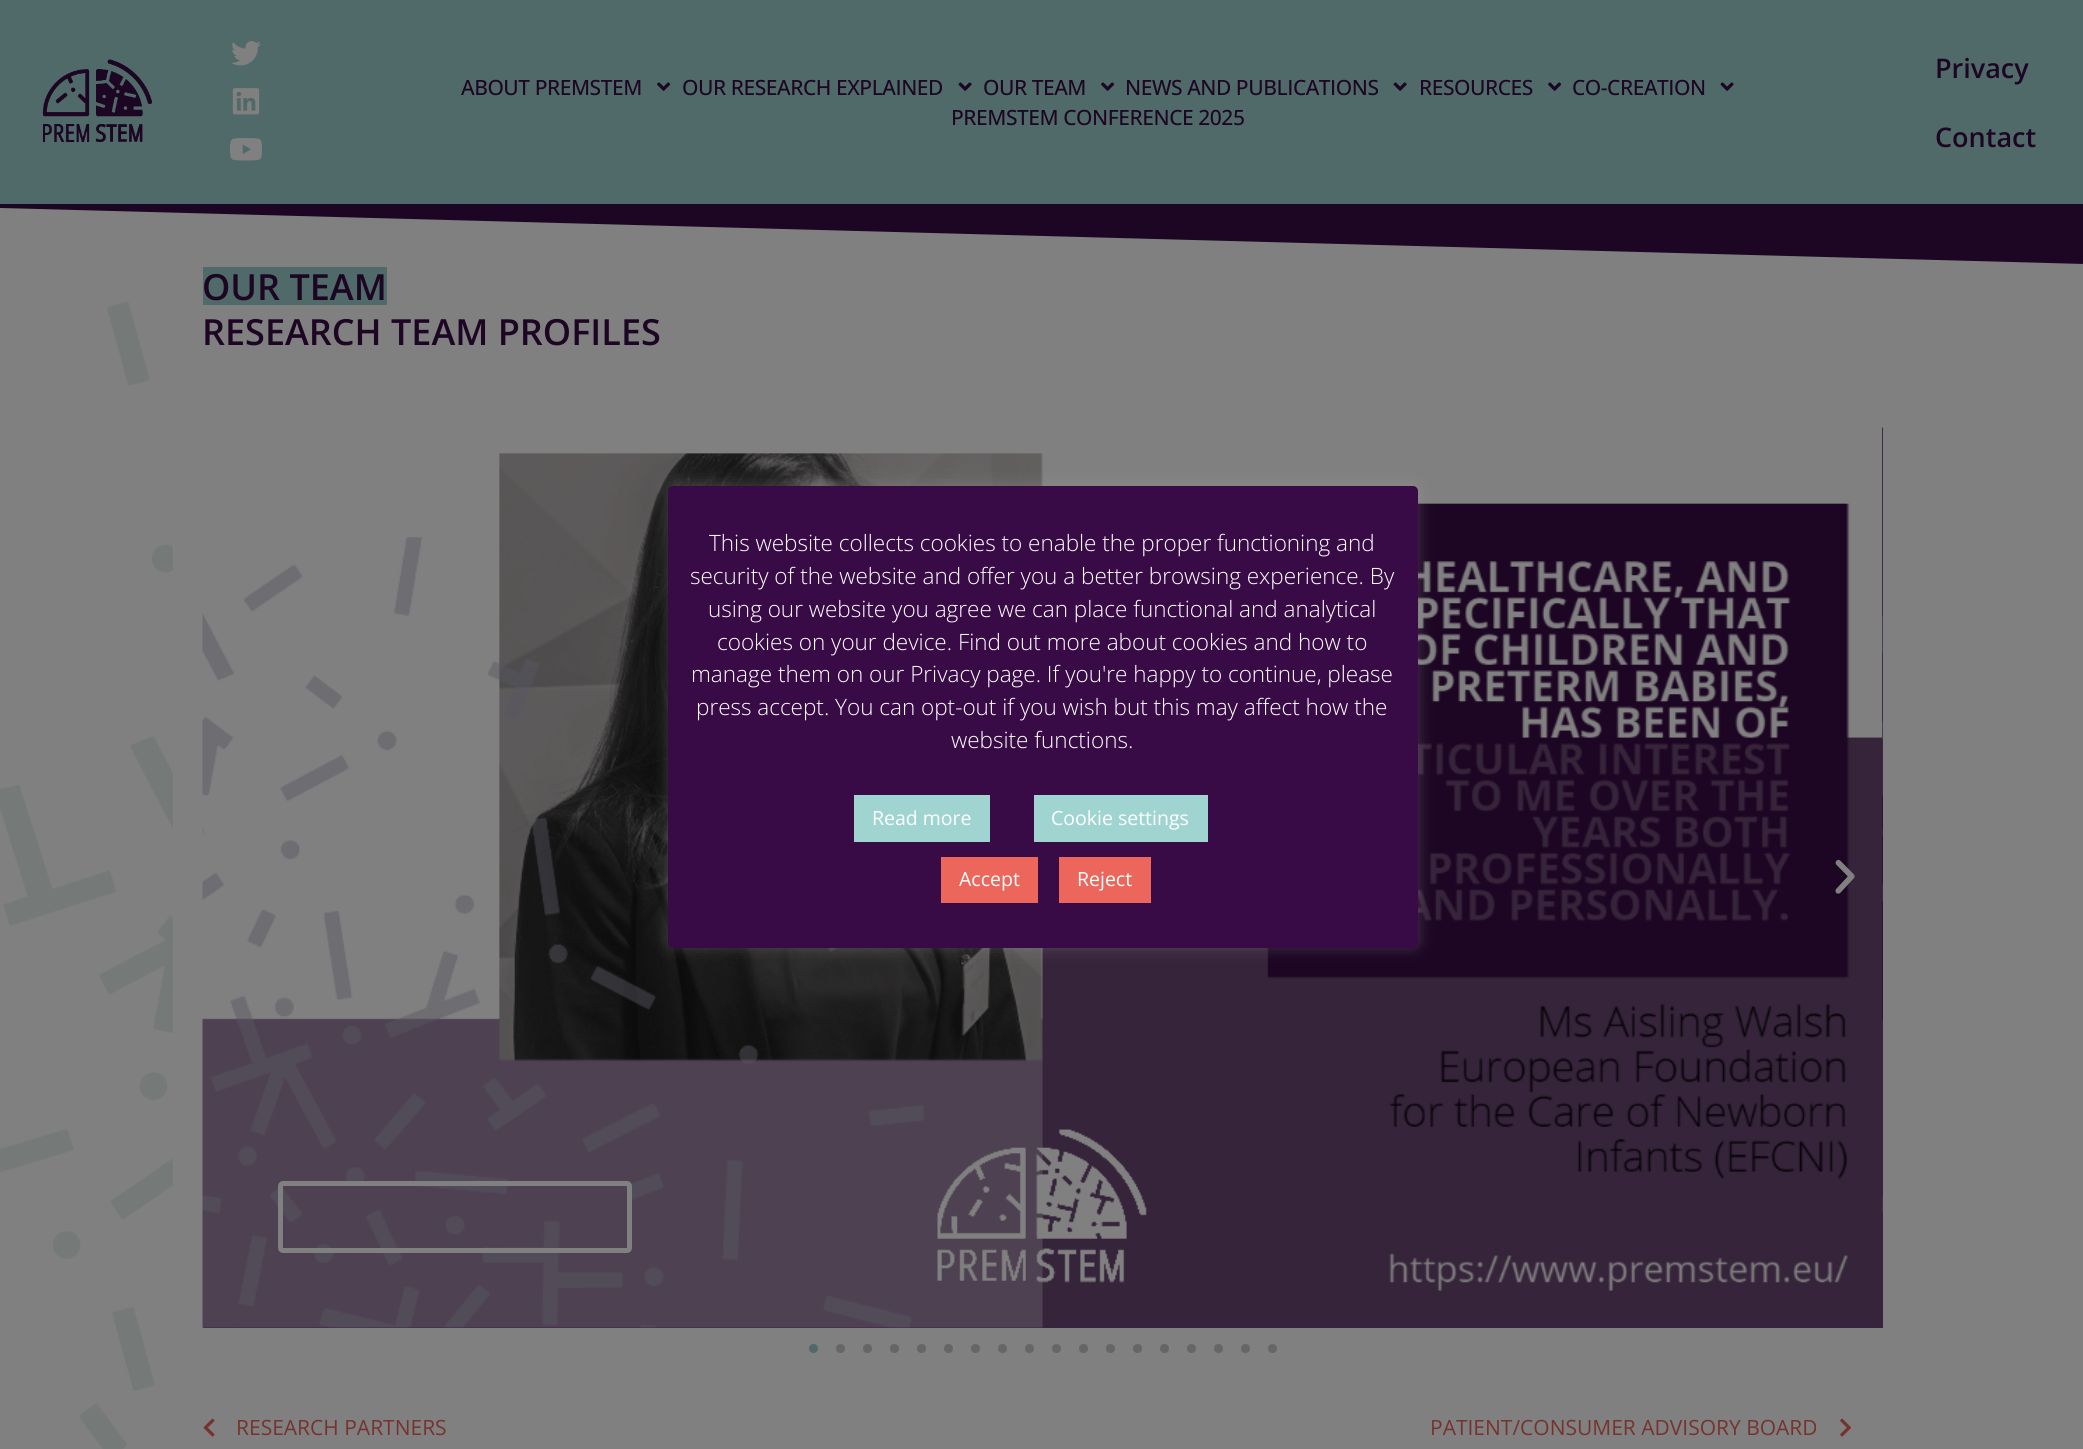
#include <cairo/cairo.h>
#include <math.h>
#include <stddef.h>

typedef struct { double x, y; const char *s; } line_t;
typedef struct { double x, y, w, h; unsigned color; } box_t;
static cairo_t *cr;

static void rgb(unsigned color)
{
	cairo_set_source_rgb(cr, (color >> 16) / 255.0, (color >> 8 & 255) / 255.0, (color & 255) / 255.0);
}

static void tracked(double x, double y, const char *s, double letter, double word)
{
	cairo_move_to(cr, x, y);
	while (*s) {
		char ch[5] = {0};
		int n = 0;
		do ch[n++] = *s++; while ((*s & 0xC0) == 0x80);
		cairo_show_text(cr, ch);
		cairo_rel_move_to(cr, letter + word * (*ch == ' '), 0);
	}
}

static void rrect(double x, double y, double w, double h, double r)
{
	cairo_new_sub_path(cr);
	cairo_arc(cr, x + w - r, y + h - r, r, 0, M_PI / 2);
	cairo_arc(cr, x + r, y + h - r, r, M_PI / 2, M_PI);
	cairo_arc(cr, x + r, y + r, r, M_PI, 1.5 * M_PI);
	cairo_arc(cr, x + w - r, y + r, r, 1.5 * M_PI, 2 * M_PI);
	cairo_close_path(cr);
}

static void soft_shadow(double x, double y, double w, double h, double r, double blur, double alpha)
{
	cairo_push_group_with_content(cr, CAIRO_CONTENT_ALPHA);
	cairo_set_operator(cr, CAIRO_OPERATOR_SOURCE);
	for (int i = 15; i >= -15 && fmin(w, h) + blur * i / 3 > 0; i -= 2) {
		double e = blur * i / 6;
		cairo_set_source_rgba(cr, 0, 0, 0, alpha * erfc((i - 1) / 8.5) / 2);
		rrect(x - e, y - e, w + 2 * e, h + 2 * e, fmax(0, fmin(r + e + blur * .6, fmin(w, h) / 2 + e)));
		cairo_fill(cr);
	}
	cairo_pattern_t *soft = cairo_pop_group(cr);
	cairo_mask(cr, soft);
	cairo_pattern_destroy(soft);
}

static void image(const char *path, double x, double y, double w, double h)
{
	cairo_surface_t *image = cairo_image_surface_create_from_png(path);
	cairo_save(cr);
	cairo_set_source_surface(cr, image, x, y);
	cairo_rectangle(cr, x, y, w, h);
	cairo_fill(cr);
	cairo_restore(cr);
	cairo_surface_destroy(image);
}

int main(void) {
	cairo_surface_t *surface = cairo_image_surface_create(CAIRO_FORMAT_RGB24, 2083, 1449);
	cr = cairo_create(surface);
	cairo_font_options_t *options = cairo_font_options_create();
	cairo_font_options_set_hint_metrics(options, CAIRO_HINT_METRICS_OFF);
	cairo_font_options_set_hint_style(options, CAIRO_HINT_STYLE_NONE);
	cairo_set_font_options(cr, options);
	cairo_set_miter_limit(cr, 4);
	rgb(0x808080);
	cairo_paint(cr);
	rgb(0x506a69);
	cairo_rectangle(cr, 0, 0, 2083, 206);
	cairo_fill(cr);
	image("img/1.png", 42, 59, 111, 83);
	image("img/2.png", 231, 41, 30, 25);
	image("img/3.png", 232, 88, 28, 27);
	image("img/4.png", 230, 138, 32, 23);
	image("img/5.png", 657, 82, 14, 9);
	image("img/6.png", 958, 82, 14, 9);
	image("img/5.png", 1101, 82, 14, 9);
	image("img/6.png", 1393, 82, 14, 9);
	image("img/5.png", 1548, 82, 14, 9);
	image("img/6.png", 1720, 82, 14, 9);
	image("img/7.png", 0, 301, 173, 1148);
	rgb(0x1d0623);
	cairo_new_path(cr);
	cairo_move_to(cr, 0, 208);
	cairo_line_to(cr, 0, 204);
	cairo_line_to(cr, 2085, 204);
	cairo_line_to(cr, 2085, 264);
	cairo_close_path(cr);
	cairo_fill(cr);
	rgb(0x506a69);
	cairo_rectangle(cr, 203, 267, 184, 38);
	cairo_fill(cr);
	rgb(0x421e52);
	cairo_rectangle(cr, 203, 428, 1680, 900);
	cairo_fill(cr);
	image("img/9.png", 202, 428, 1681, 900);
	image("img/8.png", 1882, 427, 1, 901);
	rrect(280.5, 1183.5, 349, 67, 2.5);
	rgb(0x808080);
	cairo_set_line_width(cr, 5);
	cairo_stroke(cr);
	image("img/10.png", 1835, 859, 20, 35);
	rgb(0x506a69);
	cairo_arc(cr, 813.5, 1348.5, 4.5, 0, 2 * M_PI);
	cairo_fill(cr);
	rgb(0x666666);
	cairo_arc(cr, 840.5, 1348.5, 4.5, 0, 2 * M_PI);
	cairo_fill(cr);
	cairo_arc(cr, 867.5, 1348.5, 4.5, 0, 2 * M_PI);
	cairo_fill(cr);
	cairo_arc(cr, 894.5, 1348.5, 4.5, 0, 2 * M_PI);
	cairo_fill(cr);
	cairo_arc(cr, 921.5, 1348.5, 4.5, 0, 2 * M_PI);
	cairo_fill(cr);
	cairo_arc(cr, 948.5, 1348.5, 4.5, 0, 2 * M_PI);
	cairo_fill(cr);
	cairo_arc(cr, 975.5, 1348.5, 4.5, 0, 2 * M_PI);
	cairo_fill(cr);
	cairo_arc(cr, 1002.5, 1348.5, 4.5, 0, 2 * M_PI);
	cairo_fill(cr);
	cairo_arc(cr, 1029.5, 1348.5, 4.5, 0, 2 * M_PI);
	cairo_fill(cr);
	cairo_arc(cr, 1056.5, 1348.5, 4.5, 0, 2 * M_PI);
	cairo_fill(cr);
	cairo_arc(cr, 1083.5, 1348.5, 4.5, 0, 2 * M_PI);
	cairo_fill(cr);
	cairo_arc(cr, 1110.5, 1348.5, 4.5, 0, 2 * M_PI);
	cairo_fill(cr);
	cairo_arc(cr, 1137.5, 1348.5, 4.5, 0, 2 * M_PI);
	cairo_fill(cr);
	cairo_arc(cr, 1164.5, 1348.5, 4.5, 0, 2 * M_PI);
	cairo_fill(cr);
	cairo_arc(cr, 1191.5, 1348.5, 4.5, 0, 2 * M_PI);
	cairo_fill(cr);
	cairo_arc(cr, 1218.5, 1348.5, 4.5, 0, 2 * M_PI);
	cairo_fill(cr);
	cairo_arc(cr, 1245.5, 1348.5, 4.5, 0, 2 * M_PI);
	cairo_fill(cr);
	cairo_arc(cr, 1272.5, 1348.5, 4.5, 0, 2 * M_PI);
	cairo_fill(cr);
	image("img/11.png", 203, 1418, 12, 19);
	image("img/12.png", 1840, 1418, 11, 19);
	rgb(0xacabab);
	soft_shadow(668, 485, 750, 462, 5, 7.5, 0.3);
	rgb(0x390b46);
	rrect(668, 486, 750, 462, 5);
	cairo_fill(cr);
	{
		static const box_t items[] = {
			{854, 795, 136, 47, 0xa0d4d1},
			{1034, 795, 174, 47, 0xa0d4d1},
			{941, 857, 97, 46, 0xec665b},
			{1059, 857, 92, 46, 0xec665b},
		};
		for (size_t i = 0; i < sizeof items / sizeof *items; i++) {
			rgb(items[i].color);
			cairo_rectangle(cr, items[i].x, items[i].y, items[i].w, items[i].h);
			cairo_fill(cr);
		}
	}
	cairo_select_font_face(cr, "Open Sans Medium", CAIRO_FONT_SLANT_NORMAL, CAIRO_FONT_WEIGHT_NORMAL);
	cairo_set_font_size(cr, 21);
	rgb(0x1d0623);
	{
		static const line_t items[] = {
			{461, 95, "ABOUT PREMSTEM"},
			{682, 95, "OUR RESEARCH EXPLAINED"},
			{983, 95, "OUR TEAM"},
			{1125, 95, "NEWS AND PUBLICATIONS"},
			{1419, 95, "RESOURCES"},
			{1572, 95, "CO-CREATION"},
			{951, 125, "PREMSTEM CONFERENCE 2025"},
		};
		for (size_t i = 0; i < sizeof items / sizeof *items; i++) {
			tracked(items[i].x, items[i].y, items[i].s, -0.45, 0);
		}
	}
	cairo_select_font_face(cr, "Open Sans SemiBold", CAIRO_FONT_SLANT_NORMAL, CAIRO_FONT_WEIGHT_NORMAL);
	cairo_set_font_size(cr, 27);
	cairo_move_to(cr, 1935, 78);
	cairo_show_text(cr, "Privacy");
	cairo_move_to(cr, 1935, 147);
	cairo_show_text(cr, "Contact");
	cairo_set_font_size(cr, 36);
	cairo_move_to(cr, 202, 300);
	cairo_show_text(cr, "OUR TEAM");
	cairo_move_to(cr, 202, 345);
	cairo_show_text(cr, "RESEARCH TEAM PROFILES");
	cairo_select_font_face(cr, "Open Sans", CAIRO_FONT_SLANT_NORMAL, CAIRO_FONT_WEIGHT_NORMAL);
	cairo_set_font_size(cr, 21);
	rgb(0x76332e);
	cairo_move_to(cr, 236, 1435);
	cairo_show_text(cr, "RESEARCH PARTNERS");
	cairo_move_to(cr, 1430, 1435);
	cairo_show_text(cr, "PATIENT/CONSUMER ADVISORY BOARD");
	cairo_select_font_face(cr, "Open Sans Light", CAIRO_FONT_SLANT_NORMAL, CAIRO_FONT_WEIGHT_NORMAL);
	cairo_set_font_size(cr, 22.5);
	rgb(0xffffff);
	{
		static const line_t items[] = {
			{709, 551, "This website collects cookies to enable the proper functioning and"},
			{690, 584, "security of the website and offer you a better browsing experience. By"},
			{708, 617, "using our website you agree we can place functional and analytical"},
			{717, 650, "cookies on your device. Find out more about cookies and how to"},
			{691, 682, "manage them on our Privacy page. If you're happy to continue, please"},
			{696, 715, "press accept. You can opt-out if you wish but this may affect how the"},
			{951, 748, "website functions."},
		};
		for (size_t i = 0; i < sizeof items / sizeof *items; i++) {
			cairo_move_to(cr, items[i].x, items[i].y);
			cairo_show_text(cr, items[i].s);
		}
	}
	cairo_select_font_face(cr, "Open Sans", CAIRO_FONT_SLANT_NORMAL, CAIRO_FONT_WEIGHT_NORMAL);
	cairo_set_font_size(cr, 19.5);
	{
		static const line_t items[] = {
			{872, 825, "Read more"},
			{1051, 825, "Cookie settings"},
			{959, 886, "Accept"},
			{1077, 886, "Reject"},
		};
		for (size_t i = 0; i < sizeof items / sizeof *items; i++) {
			cairo_move_to(cr, items[i].x, items[i].y);
			cairo_show_text(cr, items[i].s);
		}
	}
	cairo_surface_write_to_png(surface, "page.png");
	cairo_font_options_destroy(options);
	cairo_destroy(cr);
	cairo_surface_destroy(surface);
	return 0;
}
